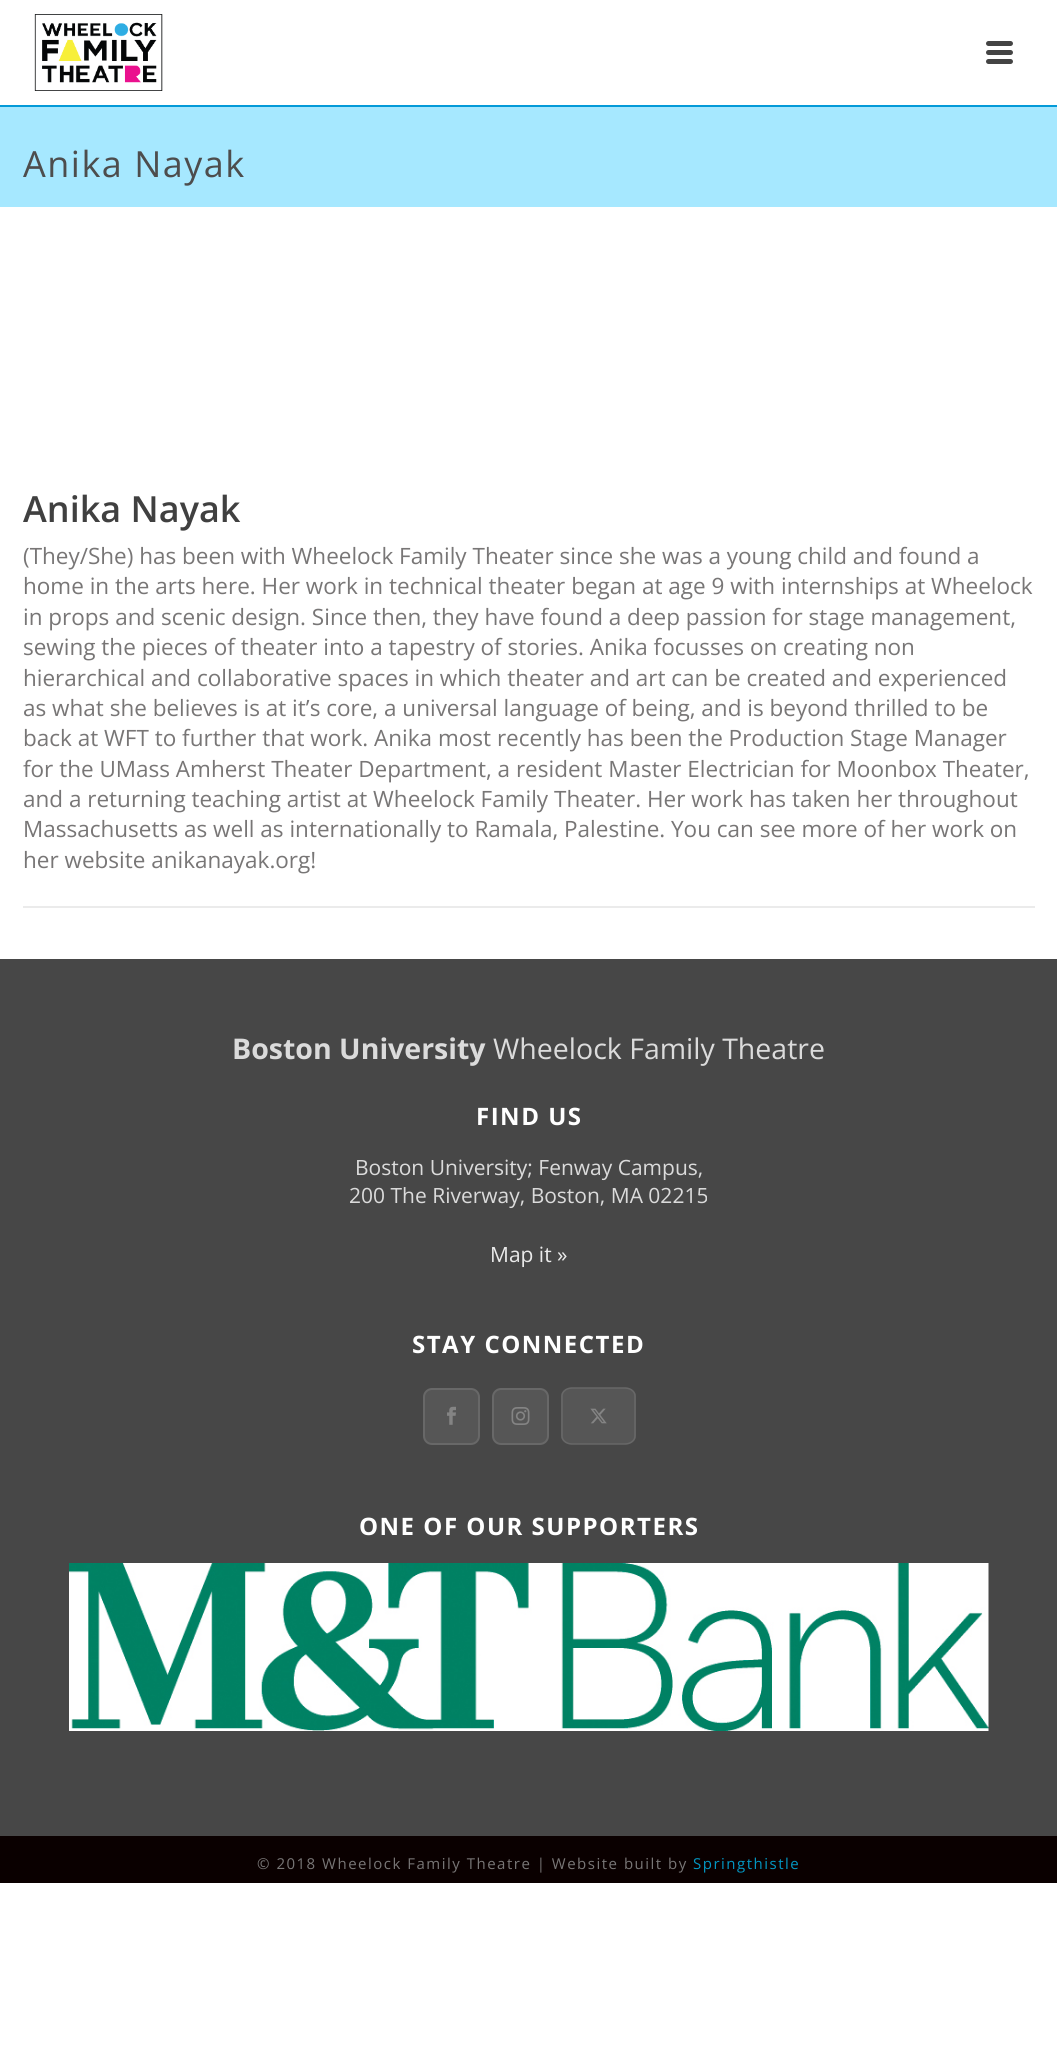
#include <cairo/cairo.h>
#include <math.h>
#include <stddef.h>

typedef struct { double x, y; const char *s; } line_t;
static cairo_t *cr;

static void rgb(unsigned color)
{
	cairo_set_source_rgb(cr, (color >> 16) / 255.0, (color >> 8 & 255) / 255.0, (color & 255) / 255.0);
}

static void tracked(double x, double y, const char *s, double letter, double word)
{
	cairo_move_to(cr, x, y);
	while (*s) {
		char ch[5] = {0};
		int n = 0;
		do ch[n++] = *s++; while ((*s & 0xC0) == 0x80);
		cairo_show_text(cr, ch);
		cairo_rel_move_to(cr, letter + word * (*ch == ' '), 0);
	}
}

static void rrect(double x, double y, double w, double h, double r)
{
	cairo_new_sub_path(cr);
	cairo_arc(cr, x + w - r, y + h - r, r, 0, M_PI / 2);
	cairo_arc(cr, x + r, y + h - r, r, M_PI / 2, M_PI);
	cairo_arc(cr, x + r, y + r, r, M_PI, 1.5 * M_PI);
	cairo_arc(cr, x + w - r, y + r, r, 1.5 * M_PI, 2 * M_PI);
	cairo_close_path(cr);
}

static void image(const char *path, double x, double y, double w, double h)
{
	cairo_surface_t *image = cairo_image_surface_create_from_png(path);
	cairo_save(cr);
	cairo_set_source_surface(cr, image, x, y);
	cairo_rectangle(cr, x, y, w, h);
	cairo_fill(cr);
	cairo_restore(cr);
	cairo_surface_destroy(image);
}

int main(void) {
	cairo_surface_t *surface = cairo_image_surface_create(CAIRO_FORMAT_RGB24, 1057, 2069);
	cr = cairo_create(surface);
	cairo_font_options_t *options = cairo_font_options_create();
	cairo_font_options_set_hint_metrics(options, CAIRO_HINT_METRICS_OFF);
	cairo_font_options_set_hint_style(options, CAIRO_HINT_STYLE_NONE);
	cairo_set_font_options(cr, options);
	cairo_set_miter_limit(cr, 4);
	rgb(0xffffff);
	cairo_paint(cr);
	rgb(0xa6e8ff);
	cairo_rectangle(cr, 0, 107, 1057, 100);
	cairo_fill(cr);
	rgb(0x049ad8);
	cairo_rectangle(cr, 0, 105, 1057, 2);
	cairo_fill(cr);
	image("img/1.png", 34, 14, 129, 77);
	rgb(0x444444);
	rrect(986, 41, 27, 5, 2.5);
	cairo_fill(cr);
	rrect(986, 50, 27, 5, 2.5);
	cairo_fill(cr);
	rrect(986, 59, 27, 5, 2.5);
	cairo_fill(cr);
	rgb(0xebebeb);
	cairo_rectangle(cr, 23, 906, 1012, 2);
	cairo_fill(cr);
	rgb(0x474747);
	cairo_rectangle(cr, 0, 959, 1057, 877);
	cairo_fill(cr);
	rgb(0x565656);
	rrect(424, 1389, 55, 55, 8);
	cairo_fill_preserve(cr);
	rgb(0x686868);
	cairo_stroke(cr);
	image("img/2.png", 447, 1406, 9, 19);
	rgb(0x565656);
	rrect(493, 1389, 55, 55, 8);
	cairo_fill_preserve(cr);
	rgb(0x686868);
	cairo_stroke(cr);
	image("img/3.png", 511, 1407, 19, 18);
	rgb(0x565656);
	cairo_new_path(cr);
	cairo_move_to(cr, 572, 1388);
	cairo_line_to(cr, 625, 1388);
	cairo_curve_to(cr, 631, 1388, 636, 1391, 636, 1396);
	cairo_line_to(cr, 636, 1436);
	cairo_curve_to(cr, 636, 1441, 631, 1444, 625, 1444);
	cairo_line_to(cr, 572, 1444);
	cairo_curve_to(cr, 566, 1444, 561, 1441, 561, 1436);
	cairo_line_to(cr, 561, 1396);
	cairo_curve_to(cr, 561, 1391, 566, 1388, 572, 1388);
	cairo_close_path(cr);
	cairo_fill(cr);
	cairo_new_path(cr);
	cairo_move_to(cr, 572, 1388);
	cairo_line_to(cr, 625, 1388);
	cairo_curve_to(cr, 630.5, 1388, 635, 1391.5, 635, 1396);
	cairo_line_to(cr, 635, 1436);
	cairo_curve_to(cr, 635, 1440.5, 630.5, 1444, 625, 1444);
	cairo_line_to(cr, 572, 1444);
	cairo_curve_to(cr, 566.5, 1444, 562, 1440.5, 562, 1436);
	cairo_line_to(cr, 562, 1396);
	cairo_curve_to(cr, 562, 1391.5, 566.5, 1388, 572, 1388);
	cairo_close_path(cr);
	rgb(0x686868);
	cairo_set_line_width(cr, 1.5);
	cairo_stroke(cr);
	image("img/4.png", 590, 1408, 17, 16);
	image("img/5.png", 69, 1563, 920, 168);
	rgb(0x0a0000);
	cairo_rectangle(cr, 0, 1836, 1057, 47);
	cairo_fill(cr);
	cairo_select_font_face(cr, "Open Sans", CAIRO_FONT_SLANT_NORMAL, CAIRO_FONT_WEIGHT_NORMAL);
	cairo_set_font_size(cr, 36);
	rgb(0x4d4d4d);
	tracked(23, 177, "Anika Nayak", 1.5, 0);
	cairo_select_font_face(cr, "Open Sans SemiBold", CAIRO_FONT_SLANT_NORMAL, CAIRO_FONT_WEIGHT_NORMAL);
	rgb(0x404040);
	cairo_move_to(cr, 23, 522);
	cairo_show_text(cr, "Anika Nayak");
	cairo_select_font_face(cr, "Open Sans", CAIRO_FONT_SLANT_NORMAL, CAIRO_FONT_WEIGHT_NORMAL);
	cairo_set_font_size(cr, 22.5);
	rgb(0x787676);
	{
		static const line_t items[] = {
			{23, 564, "(They/She) has been with Wheelock Family Theater since she was a young child and found a"},
			{23, 594, "home in the arts here. Her work in technical theater began at age 9 with internships at Wheelock"},
			{23, 625, "in props and scenic design. Since then, they have found a deep passion for stage management,"},
			{23, 655, "sewing the pieces of theater into a tapestry of stories. Anika focusses on creating non"},
			{23, 686, "hierarchical and collaborative spaces in which theater and art can be created and experienced"},
			{23, 716, "as what she believes is at it’s core, a universal language of being, and is beyond thrilled to be"},
			{23, 746, "back at WFT to further that work. Anika most recently has been the Production Stage Manager"},
			{23, 777, "for the UMass Amherst Theater Department, a resident Master Electrician for Moonbox Theater,"},
			{23, 807, "and a returning teaching artist at Wheelock Family Theater. Her work has taken her throughout"},
			{23, 837, "Massachusetts as well as internationally to Ramala, Palestine. You can see more of her work on"},
			{23, 868, "her website anikanayak.org!"},
		};
		for (size_t i = 0; i < sizeof items / sizeof *items; i++) {
			cairo_move_to(cr, items[i].x, items[i].y);
			cairo_show_text(cr, items[i].s);
		}
	}
	cairo_select_font_face(cr, "Open Sans", CAIRO_FONT_SLANT_NORMAL, CAIRO_FONT_WEIGHT_BOLD);
	cairo_set_font_size(cr, 28.5);
	rgb(0xdbdbdb);
	cairo_move_to(cr, 232, 1059);
	cairo_show_text(cr, "Boston University");
	cairo_select_font_face(cr, "Open Sans", CAIRO_FONT_SLANT_NORMAL, CAIRO_FONT_WEIGHT_NORMAL);
	cairo_move_to(cr, 493, 1059);
	cairo_show_text(cr, "Wheelock Family Theatre");
	cairo_select_font_face(cr, "Open Sans", CAIRO_FONT_SLANT_NORMAL, CAIRO_FONT_WEIGHT_BOLD);
	cairo_set_font_size(cr, 24);
	rgb(0xffffff);
	tracked(476, 1125, "FIND US", 1.5, 0);
	cairo_select_font_face(cr, "Open Sans", CAIRO_FONT_SLANT_NORMAL, CAIRO_FONT_WEIGHT_NORMAL);
	cairo_set_font_size(cr, 21);
	rgb(0xdbdbdb);
	cairo_move_to(cr, 355, 1175);
	cairo_show_text(cr, "Boston University; Fenway Campus,");
	cairo_move_to(cr, 349, 1203);
	cairo_show_text(cr, "200 The Riverway, Boston, MA 02215");
	rgb(0xeaeaea);
	cairo_move_to(cr, 490, 1262);
	cairo_show_text(cr, "Map it »");
	cairo_select_font_face(cr, "Open Sans", CAIRO_FONT_SLANT_NORMAL, CAIRO_FONT_WEIGHT_BOLD);
	cairo_set_font_size(cr, 24);
	rgb(0xffffff);
	tracked(412, 1353, "STAY CONNECTED", 1.5, 0);
	tracked(359, 1535, "ONE OF OUR SUPPORTERS", 1.5, 0);
	cairo_select_font_face(cr, "Open Sans", CAIRO_FONT_SLANT_NORMAL, CAIRO_FONT_WEIGHT_NORMAL);
	cairo_set_font_size(cr, 15);
	rgb(0x787676);
	tracked(257, 1869, "© 2018 Wheelock Family Theatre | Website built by", 1.5, 0);
	rgb(0x0296c2);
	tracked(693, 1869, "Springthistle", 1.5, 0);
	cairo_surface_write_to_png(surface, "page.png");
	cairo_font_options_destroy(options);
	cairo_destroy(cr);
	cairo_surface_destroy(surface);
	return 0;
}
